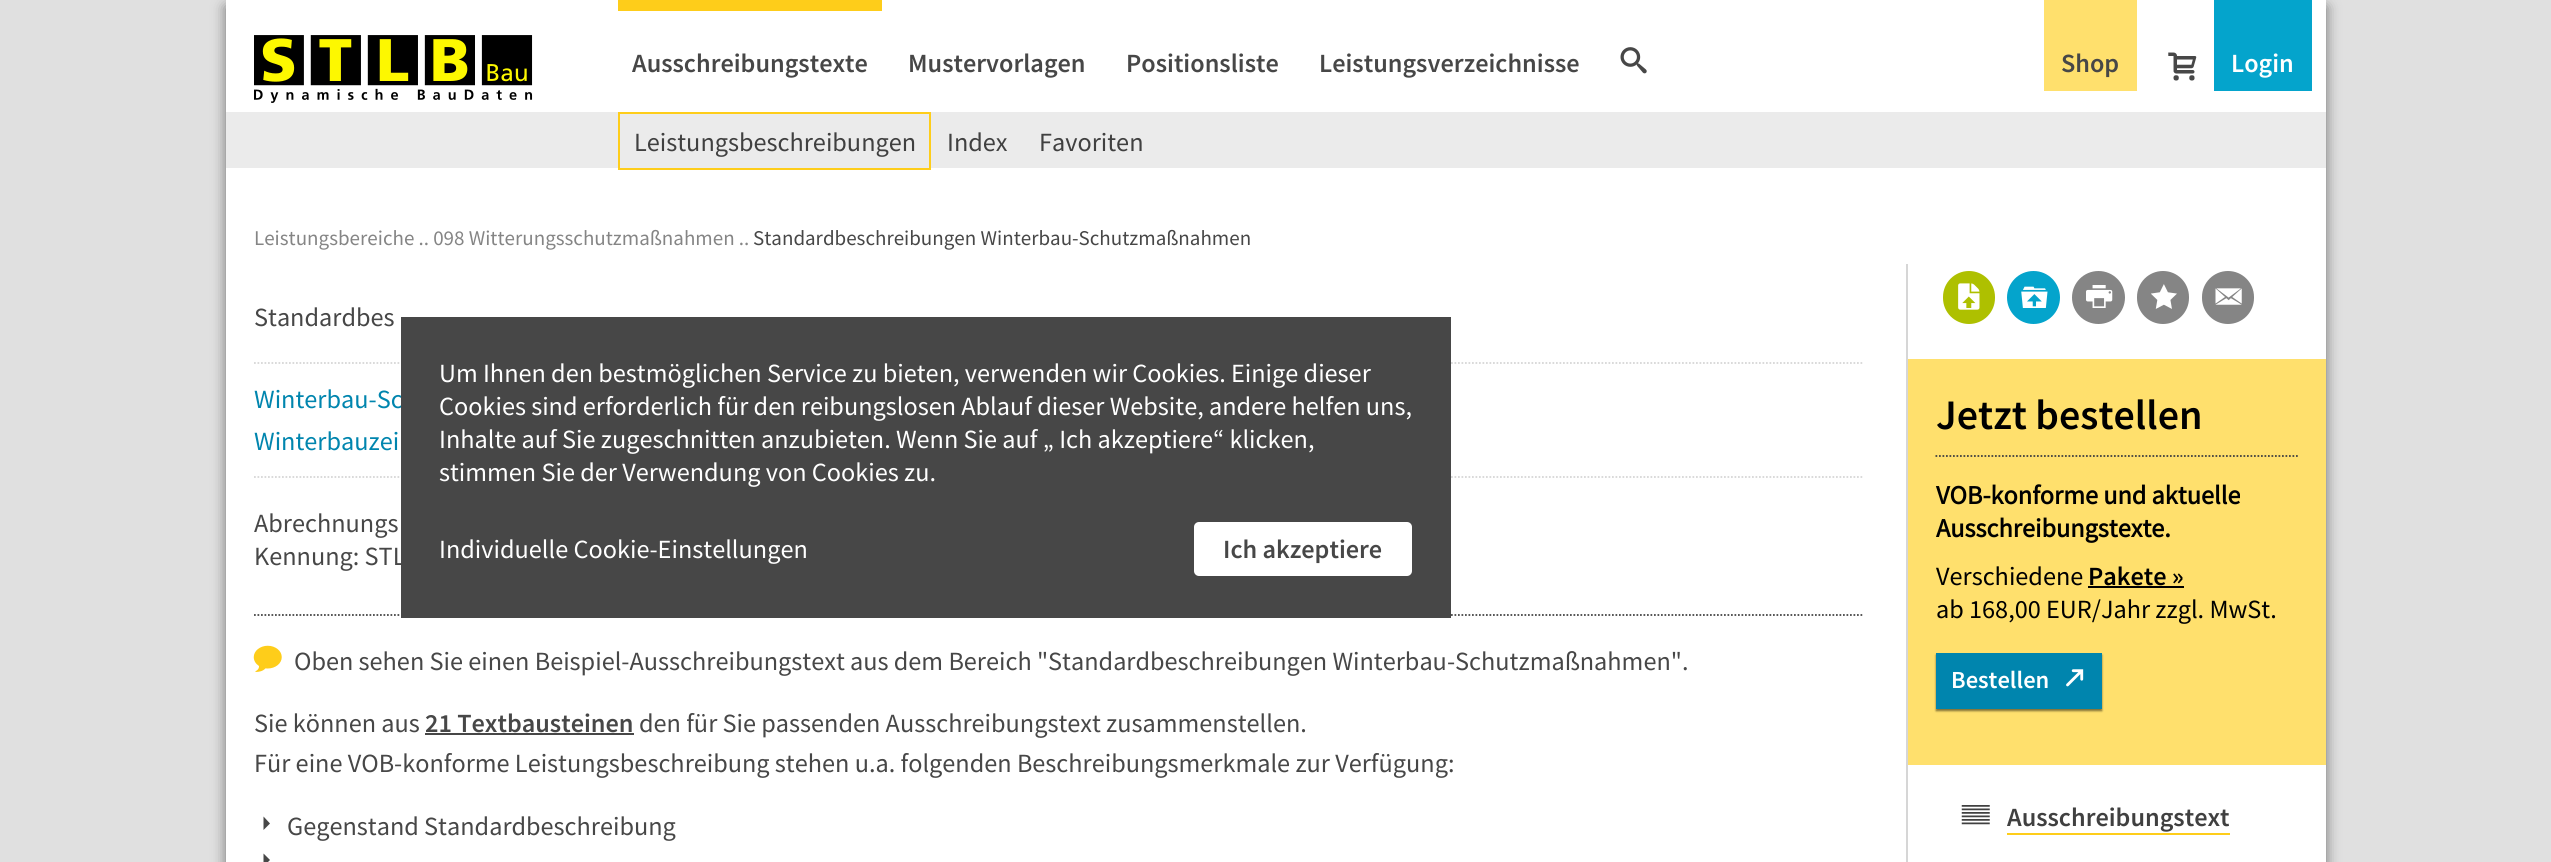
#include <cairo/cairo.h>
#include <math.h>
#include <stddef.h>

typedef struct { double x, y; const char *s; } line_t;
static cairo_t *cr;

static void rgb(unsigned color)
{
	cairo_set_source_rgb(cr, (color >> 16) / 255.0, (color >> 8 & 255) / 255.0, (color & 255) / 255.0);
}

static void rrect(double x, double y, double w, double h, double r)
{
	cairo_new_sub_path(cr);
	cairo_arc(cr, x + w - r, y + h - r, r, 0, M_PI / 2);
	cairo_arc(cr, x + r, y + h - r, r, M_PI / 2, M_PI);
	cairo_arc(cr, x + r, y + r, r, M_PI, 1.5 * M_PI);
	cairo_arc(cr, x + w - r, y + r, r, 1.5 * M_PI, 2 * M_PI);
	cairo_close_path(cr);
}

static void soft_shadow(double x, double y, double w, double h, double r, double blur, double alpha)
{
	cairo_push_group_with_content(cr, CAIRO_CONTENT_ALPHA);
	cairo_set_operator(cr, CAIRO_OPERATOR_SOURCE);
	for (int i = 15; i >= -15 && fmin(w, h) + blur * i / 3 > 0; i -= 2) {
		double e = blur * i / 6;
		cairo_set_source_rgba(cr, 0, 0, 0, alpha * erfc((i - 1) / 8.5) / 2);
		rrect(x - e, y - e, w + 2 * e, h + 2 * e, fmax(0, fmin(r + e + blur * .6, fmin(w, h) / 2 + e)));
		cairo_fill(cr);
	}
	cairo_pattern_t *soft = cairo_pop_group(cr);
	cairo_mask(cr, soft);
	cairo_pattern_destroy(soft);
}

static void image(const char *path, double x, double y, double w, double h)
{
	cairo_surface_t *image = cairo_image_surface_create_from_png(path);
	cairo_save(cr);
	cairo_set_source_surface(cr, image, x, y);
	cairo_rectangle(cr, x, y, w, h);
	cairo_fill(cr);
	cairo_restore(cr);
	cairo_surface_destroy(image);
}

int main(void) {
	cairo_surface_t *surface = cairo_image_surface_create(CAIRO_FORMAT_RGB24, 2551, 862);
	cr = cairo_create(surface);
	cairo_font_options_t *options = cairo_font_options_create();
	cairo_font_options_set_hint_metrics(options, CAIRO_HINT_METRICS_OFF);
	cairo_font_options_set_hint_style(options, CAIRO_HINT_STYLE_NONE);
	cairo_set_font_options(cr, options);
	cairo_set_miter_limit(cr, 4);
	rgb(0xe0e0e0);
	cairo_paint(cr);
	rgb(0x000000);
	soft_shadow(226, 7, 2100, 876, 0, 7, 0.5);
	rgb(0xffffff);
	cairo_rectangle(cr, 226, 0, 2100, 862);
	cairo_fill(cr);
	image("img/1.png", 254, 35, 279, 68);
	rgb(0xfecd1a);
	cairo_rectangle(cr, 618, 0, 264, 11);
	cairo_fill(cr);
	image("img/2.png", 1620, 47, 27, 27);
	rgb(0xffe06d);
	cairo_rectangle(cr, 2044, 0, 93, 91);
	cairo_fill(cr);
	image("img/3.png", 2168, 52, 29, 29);
	rgb(0x04a4cc);
	cairo_rectangle(cr, 2214, 0, 98, 91);
	cairo_fill(cr);
	rgb(0xebebeb);
	cairo_rectangle(cr, 226, 112, 2100, 56);
	cairo_fill(cr);
	cairo_rectangle(cr, 619, 113, 311, 56);
	rgb(0xfecd1a);
	cairo_stroke(cr);
	cairo_new_path(cr);
	cairo_move_to(cr, 254, 363);
	cairo_line_to(cr, 1864, 363);
	rgb(0xd6d6d6);
	cairo_set_line_width(cr, 1.8);
	cairo_set_dash(cr, (double[]){1.75, 1.75}, 2, 0);
	cairo_stroke(cr);
	cairo_new_path(cr);
	cairo_move_to(cr, 254, 477);
	cairo_line_to(cr, 1864, 477);
	cairo_stroke(cr);
	cairo_new_path(cr);
	cairo_move_to(cr, 254, 615);
	cairo_line_to(cr, 1864, 615);
	rgb(0x474747);
	cairo_stroke(cr);
	image("img/4.png", 253, 645, 29, 27);
	cairo_rectangle(cr, 425, 733, 209, 2);
	cairo_fill(cr);
	cairo_new_path(cr);
	cairo_move_to(cr, 263.5, 830);
	cairo_line_to(cr, 270, 823.5);
	cairo_line_to(cr, 263.5, 816.5);
	cairo_close_path(cr);
	cairo_fill(cr);
	cairo_new_path(cr);
	cairo_move_to(cr, 263.5, 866.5);
	cairo_line_to(cr, 270, 860);
	cairo_line_to(cr, 263.5, 853.5);
	cairo_close_path(cr);
	cairo_fill(cr);
	rgb(0xd6d6d6);
	cairo_rectangle(cr, 1906, 264, 2, 598);
	cairo_fill(cr);
	rgb(0xaec000);
	rrect(1943, 271, 52, 53, 26);
	cairo_fill(cr);
	image("img/5.png", 1958, 283, 22, 27);
	rgb(0x04a4cc);
	cairo_arc(cr, 2033.5, 297.5, 26.5, 0, 2 * M_PI);
	cairo_fill(cr);
	image("img/6.png", 2021, 286, 27, 22);
	rgb(0x858585);
	cairo_arc(cr, 2098.5, 297.5, 26.5, 0, 2 * M_PI);
	cairo_fill(cr);
	image("img/7.png", 2086, 285, 27, 23);
	rrect(2137, 271, 52, 53, 26);
	cairo_fill(cr);
	image("img/8.png", 2151, 284, 26, 25);
	rrect(2202, 271, 52, 53, 26);
	cairo_fill(cr);
	image("img/9.png", 2215, 288, 27, 17);
	rgb(0xffe06d);
	cairo_rectangle(cr, 1908, 359, 418, 406);
	cairo_fill(cr);
	cairo_new_path(cr);
	cairo_move_to(cr, 1935.5, 456);
	cairo_line_to(cr, 2298, 456);
	rgb(0x404040);
	cairo_stroke(cr);
	rgb(0x000000);
	cairo_rectangle(cr, 2088, 586, 96, 2);
	cairo_fill(cr);
	rgb(0x000000);
	soft_shadow(1936, 655, 166, 56, 0, 1, 0.5);
	rgb(0x0085ae);
	cairo_rectangle(cr, 1936, 653, 166, 56);
	cairo_fill(cr);
	image("img/10.png", 2066, 669, 18, 18);
	image("img/11.png", 1961, 805, 29, 20);
	rgb(0xfecd1a);
	cairo_rectangle(cr, 2007, 833, 223, 2);
	cairo_fill(cr);
	cairo_select_font_face(cr, "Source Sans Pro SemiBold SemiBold", CAIRO_FONT_SLANT_NORMAL, CAIRO_FONT_WEIGHT_NORMAL);
	cairo_set_font_size(cr, 26.25);
	rgb(0x474747);
	{
		static const line_t items[] = {
			{632, 72, "Ausschreibungstexte"},
			{908, 72, "Mustervorlagen"},
			{1126, 72, "Positionsliste"},
			{1319, 72, "Leistungsverzeichnisse"},
			{2061, 72, "Shop"},
		};
		for (size_t i = 0; i < sizeof items / sizeof *items; i++) {
			cairo_move_to(cr, items[i].x, items[i].y);
			cairo_show_text(cr, items[i].s);
		}
	}
	rgb(0xffffff);
	cairo_move_to(cr, 2231, 72);
	cairo_show_text(cr, "Login");
	cairo_select_font_face(cr, "Source Sans Pro", CAIRO_FONT_SLANT_NORMAL, CAIRO_FONT_WEIGHT_NORMAL);
	rgb(0x404040);
	{
		static const line_t items[] = {
			{634, 151, "Leistungsbeschreibungen"},
			{947, 151, "Index"},
			{1039, 151, "Favoriten"},
		};
		for (size_t i = 0; i < sizeof items / sizeof *items; i++) {
			cairo_move_to(cr, items[i].x, items[i].y);
			cairo_show_text(cr, items[i].s);
		}
	}
	cairo_set_font_size(cr, 21);
	rgb(0x858585);
	cairo_move_to(cr, 254, 245);
	cairo_show_text(cr, "Leistungsbereiche .. 098 Witterungsschutzmaßnahmen ..");
	rgb(0x474747);
	cairo_move_to(cr, 753, 245);
	cairo_show_text(cr, "Standardbeschreibungen Winterbau-Schutzmaßnahmen");
	cairo_set_font_size(cr, 26.25);
	cairo_move_to(cr, 254, 326);
	cairo_show_text(cr, "Standardbes");
	rgb(0x0085ae);
	cairo_move_to(cr, 254, 408);
	cairo_show_text(cr, "Winterbau-Sc");
	cairo_move_to(cr, 254, 450);
	cairo_show_text(cr, "Winterbauzei");
	rgb(0x474747);
	{
		static const line_t items[] = {
			{254, 532, "Abrechnungs"},
			{254, 565, "Kennung: STL"},
			{294, 670, "Oben sehen Sie einen Beispiel-Ausschreibungstext aus dem Bereich \"Standardbeschreibungen Winterbau-Schutzmaßnahmen\"."},
			{254, 732, "Sie können aus"},
		};
		for (size_t i = 0; i < sizeof items / sizeof *items; i++) {
			cairo_move_to(cr, items[i].x, items[i].y);
			cairo_show_text(cr, items[i].s);
		}
	}
	cairo_select_font_face(cr, "Source Sans Pro SemiBold SemiBold", CAIRO_FONT_SLANT_NORMAL, CAIRO_FONT_WEIGHT_NORMAL);
	cairo_move_to(cr, 425, 732);
	cairo_show_text(cr, "21 Textbausteinen");
	cairo_select_font_face(cr, "Source Sans Pro", CAIRO_FONT_SLANT_NORMAL, CAIRO_FONT_WEIGHT_NORMAL);
	{
		static const line_t items[] = {
			{639, 732, "den für Sie passenden Ausschreibungstext zusammenstellen."},
			{254, 772, "Für eine VOB-konforme Leistungsbeschreibung stehen u.a. folgenden Beschreibungsmerkmale zur Verfügung:"},
			{287, 835, "Gegenstand Standardbeschreibung"},
		};
		for (size_t i = 0; i < sizeof items / sizeof *items; i++) {
			cairo_move_to(cr, items[i].x, items[i].y);
			cairo_show_text(cr, items[i].s);
		}
	}
	cairo_select_font_face(cr, "Source Sans Pro SemiBold SemiBold", CAIRO_FONT_SLANT_NORMAL, CAIRO_FONT_WEIGHT_NORMAL);
	cairo_set_font_size(cr, 42);
	rgb(0x000000);
	cairo_move_to(cr, 1936, 429);
	cairo_show_text(cr, "Jetzt bestellen");
	cairo_select_font_face(cr, "Source Sans Pro", CAIRO_FONT_SLANT_NORMAL, CAIRO_FONT_WEIGHT_BOLD);
	cairo_set_font_size(cr, 26.25);
	cairo_move_to(cr, 1936, 504);
	cairo_show_text(cr, "VOB-konforme und aktuelle");
	cairo_move_to(cr, 1936, 537);
	cairo_show_text(cr, "Ausschreibungstexte.");
	cairo_select_font_face(cr, "Source Sans Pro", CAIRO_FONT_SLANT_NORMAL, CAIRO_FONT_WEIGHT_NORMAL);
	cairo_move_to(cr, 1936, 585);
	cairo_show_text(cr, "Verschiedene");
	cairo_select_font_face(cr, "Source Sans Pro SemiBold SemiBold", CAIRO_FONT_SLANT_NORMAL, CAIRO_FONT_WEIGHT_NORMAL);
	cairo_move_to(cr, 2088, 585);
	cairo_show_text(cr, "Pakete »");
	cairo_select_font_face(cr, "Source Sans Pro", CAIRO_FONT_SLANT_NORMAL, CAIRO_FONT_WEIGHT_NORMAL);
	cairo_move_to(cr, 1936, 618);
	cairo_show_text(cr, "ab 168,00 EUR/Jahr zzgl. MwSt.");
	cairo_select_font_face(cr, "Source Sans Pro SemiBold SemiBold", CAIRO_FONT_SLANT_NORMAL, CAIRO_FONT_WEIGHT_NORMAL);
	cairo_set_font_size(cr, 24.5);
	rgb(0xffffff);
	cairo_move_to(cr, 1951, 688);
	cairo_show_text(cr, "Bestellen");
	cairo_set_font_size(cr, 26.25);
	rgb(0x404040);
	cairo_move_to(cr, 2007, 826);
	cairo_show_text(cr, "Ausschreibungstext");
	rgb(0x474747);
	cairo_rectangle(cr, 401, 317, 1050, 301);
	cairo_fill(cr);
	cairo_select_font_face(cr, "Source Sans Pro", CAIRO_FONT_SLANT_NORMAL, CAIRO_FONT_WEIGHT_NORMAL);
	rgb(0xffffff);
	{
		static const line_t items[] = {
			{439, 382, "Um Ihnen den bestmöglichen Service zu bieten, verwenden wir Cookies. Einige dieser"},
			{439, 415, "Cookies sind erforderlich für den reibungslosen Ablauf dieser Website, andere helfen uns,"},
			{439, 448, "Inhalte auf Sie zugeschnitten anzubieten. Wenn Sie auf „ Ich akzeptiere“ klicken,"},
			{439, 481, "stimmen Sie der Verwendung von Cookies zu."},
			{439, 558, "Individuelle Cookie-Einstellungen"},
		};
		for (size_t i = 0; i < sizeof items / sizeof *items; i++) {
			cairo_move_to(cr, items[i].x, items[i].y);
			cairo_show_text(cr, items[i].s);
		}
	}
	rrect(1194, 522, 218, 54, 5);
	cairo_fill(cr);
	cairo_select_font_face(cr, "Source Sans Pro SemiBold SemiBold", CAIRO_FONT_SLANT_NORMAL, CAIRO_FONT_WEIGHT_NORMAL);
	rgb(0x474747);
	cairo_move_to(cr, 1223, 558);
	cairo_show_text(cr, "Ich akzeptiere");
	cairo_surface_write_to_png(surface, "page.png");
	cairo_font_options_destroy(options);
	cairo_destroy(cr);
	cairo_surface_destroy(surface);
	return 0;
}
